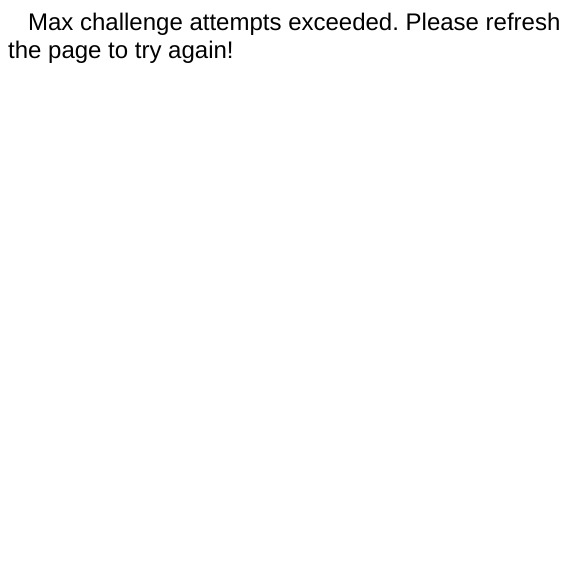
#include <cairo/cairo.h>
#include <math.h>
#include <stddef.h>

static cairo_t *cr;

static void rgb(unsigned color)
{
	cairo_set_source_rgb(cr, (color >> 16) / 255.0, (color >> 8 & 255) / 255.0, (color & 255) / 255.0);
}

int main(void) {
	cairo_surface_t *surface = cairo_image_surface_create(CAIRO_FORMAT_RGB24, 585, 587);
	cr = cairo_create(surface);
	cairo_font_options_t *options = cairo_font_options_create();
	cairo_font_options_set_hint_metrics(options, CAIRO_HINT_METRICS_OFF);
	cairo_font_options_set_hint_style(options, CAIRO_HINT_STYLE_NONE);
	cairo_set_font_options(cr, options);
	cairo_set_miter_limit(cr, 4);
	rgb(0xffffff);
	cairo_paint(cr);
	cairo_select_font_face(cr, "Liberation Sans", CAIRO_FONT_SLANT_NORMAL, CAIRO_FONT_WEIGHT_NORMAL);
	cairo_set_font_size(cr, 24);
	rgb(0x000000);
	cairo_move_to(cr, 28, 30);
	cairo_show_text(cr, "Max challenge attempts exceeded. Please refresh");
	cairo_move_to(cr, 8, 58);
	cairo_show_text(cr, "the page to try again!");
	cairo_surface_write_to_png(surface, "page.png");
	cairo_font_options_destroy(options);
	cairo_destroy(cr);
	cairo_surface_destroy(surface);
	return 0;
}
